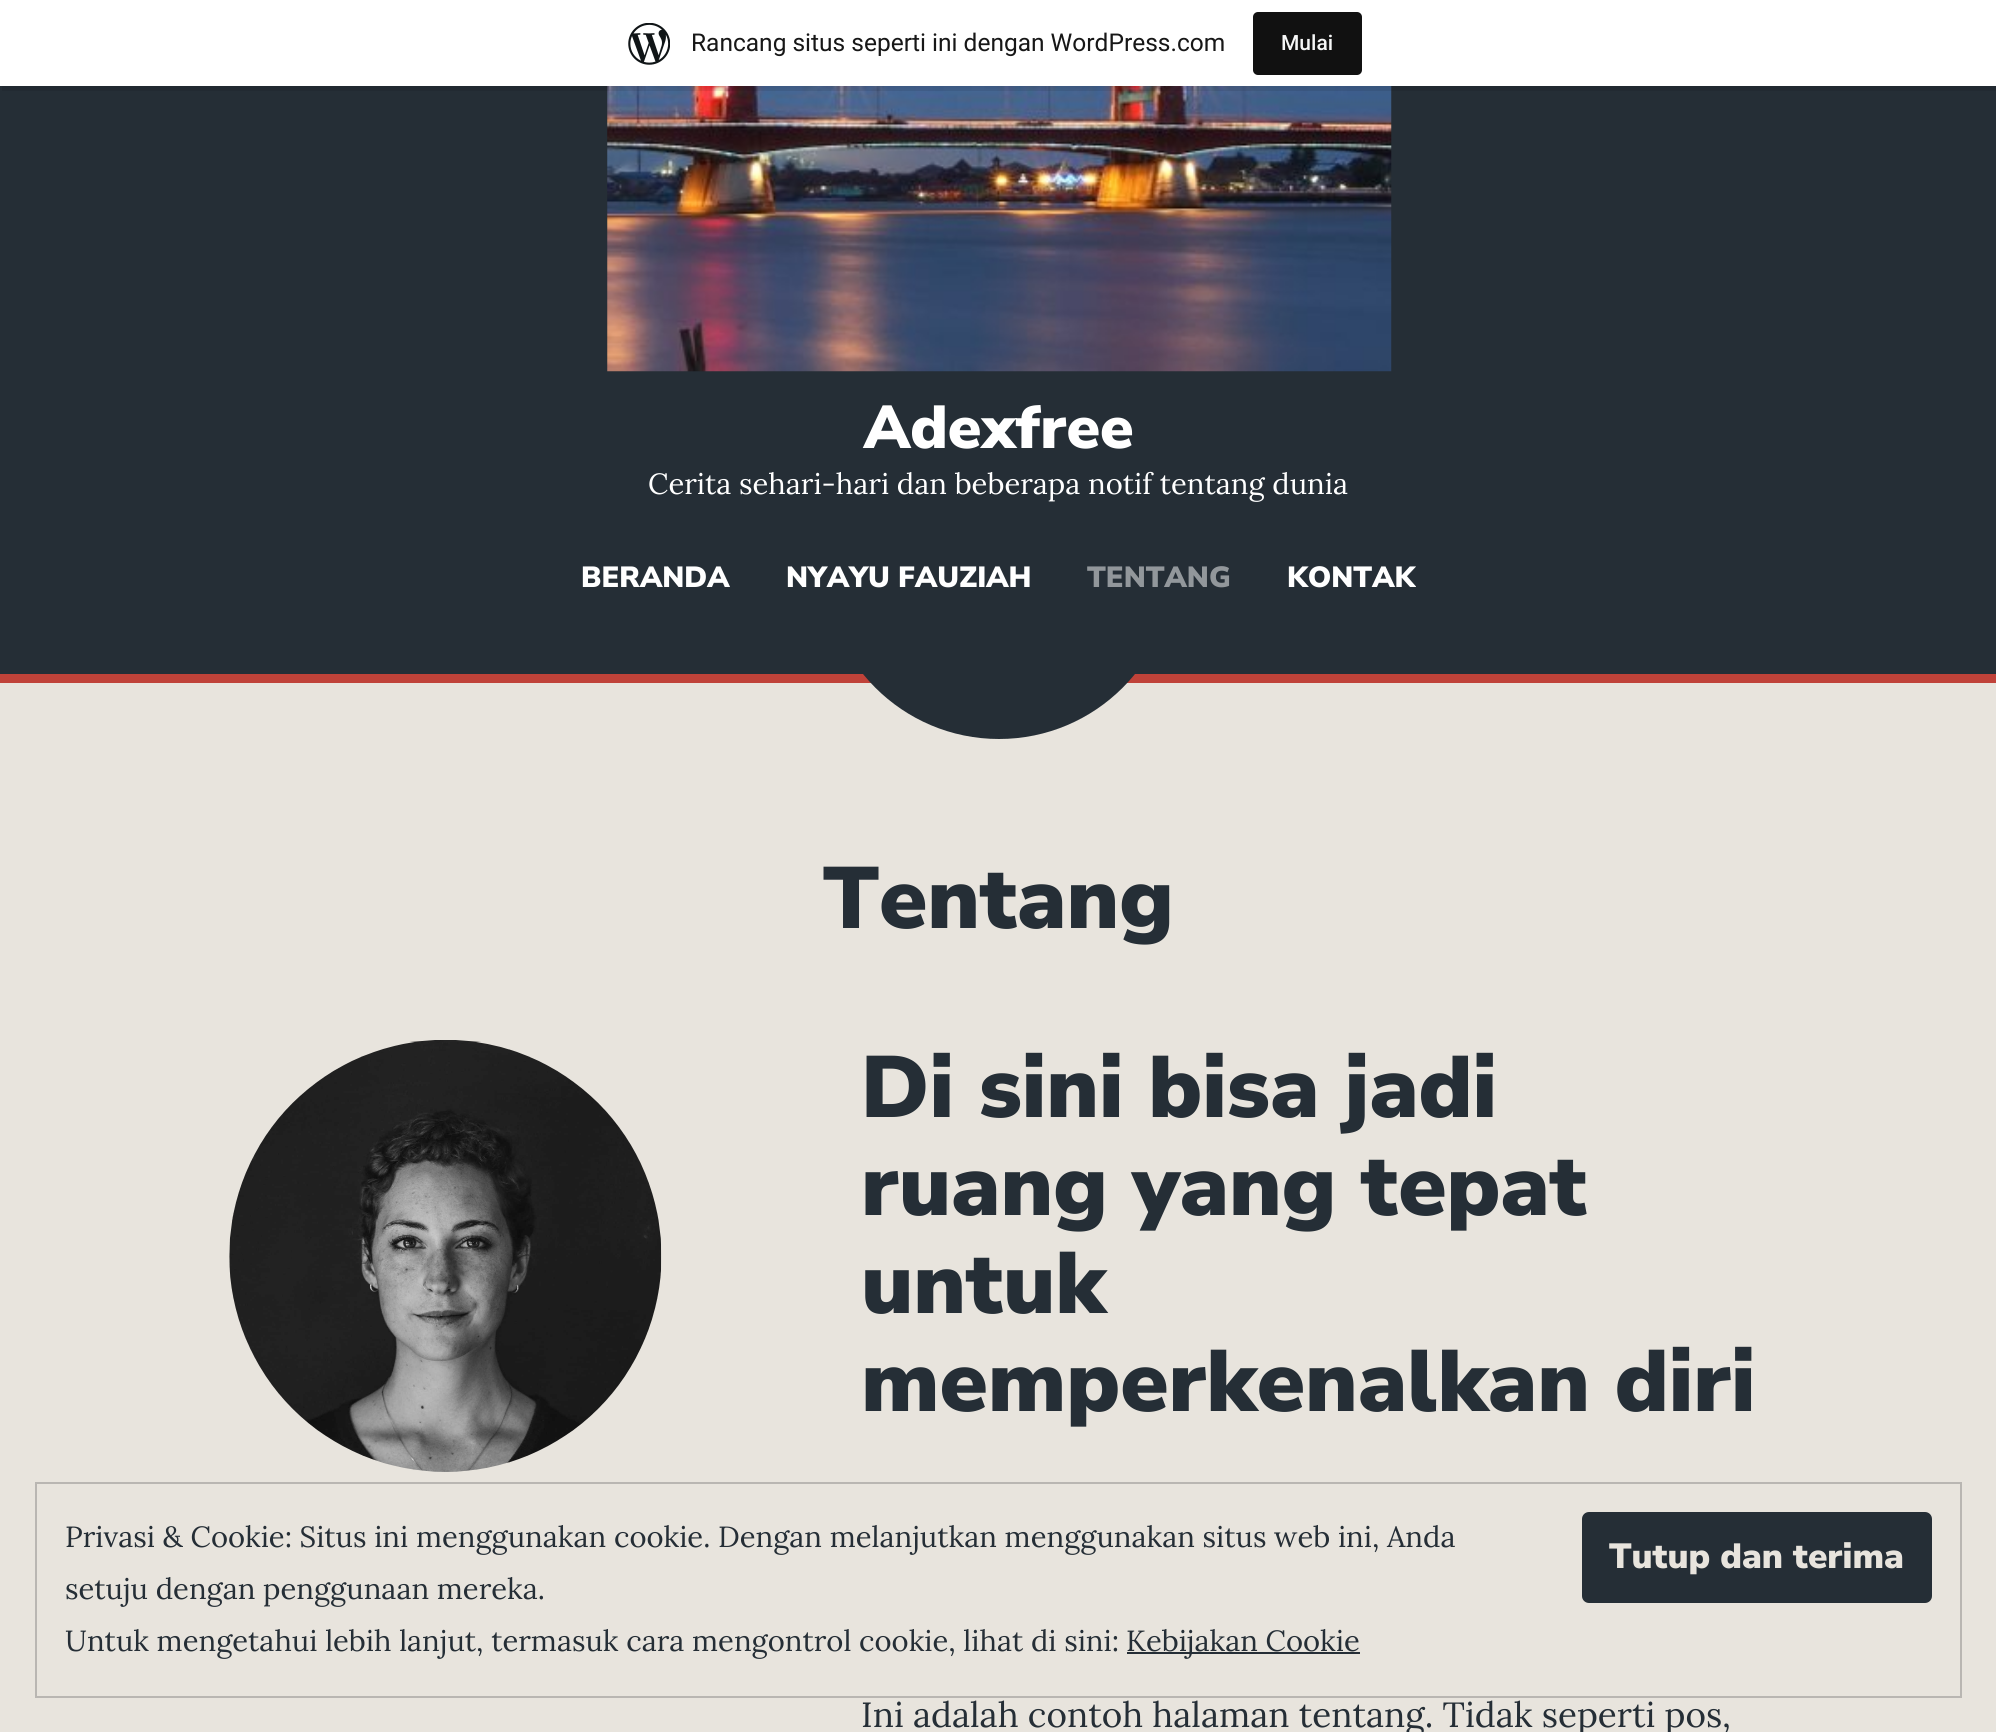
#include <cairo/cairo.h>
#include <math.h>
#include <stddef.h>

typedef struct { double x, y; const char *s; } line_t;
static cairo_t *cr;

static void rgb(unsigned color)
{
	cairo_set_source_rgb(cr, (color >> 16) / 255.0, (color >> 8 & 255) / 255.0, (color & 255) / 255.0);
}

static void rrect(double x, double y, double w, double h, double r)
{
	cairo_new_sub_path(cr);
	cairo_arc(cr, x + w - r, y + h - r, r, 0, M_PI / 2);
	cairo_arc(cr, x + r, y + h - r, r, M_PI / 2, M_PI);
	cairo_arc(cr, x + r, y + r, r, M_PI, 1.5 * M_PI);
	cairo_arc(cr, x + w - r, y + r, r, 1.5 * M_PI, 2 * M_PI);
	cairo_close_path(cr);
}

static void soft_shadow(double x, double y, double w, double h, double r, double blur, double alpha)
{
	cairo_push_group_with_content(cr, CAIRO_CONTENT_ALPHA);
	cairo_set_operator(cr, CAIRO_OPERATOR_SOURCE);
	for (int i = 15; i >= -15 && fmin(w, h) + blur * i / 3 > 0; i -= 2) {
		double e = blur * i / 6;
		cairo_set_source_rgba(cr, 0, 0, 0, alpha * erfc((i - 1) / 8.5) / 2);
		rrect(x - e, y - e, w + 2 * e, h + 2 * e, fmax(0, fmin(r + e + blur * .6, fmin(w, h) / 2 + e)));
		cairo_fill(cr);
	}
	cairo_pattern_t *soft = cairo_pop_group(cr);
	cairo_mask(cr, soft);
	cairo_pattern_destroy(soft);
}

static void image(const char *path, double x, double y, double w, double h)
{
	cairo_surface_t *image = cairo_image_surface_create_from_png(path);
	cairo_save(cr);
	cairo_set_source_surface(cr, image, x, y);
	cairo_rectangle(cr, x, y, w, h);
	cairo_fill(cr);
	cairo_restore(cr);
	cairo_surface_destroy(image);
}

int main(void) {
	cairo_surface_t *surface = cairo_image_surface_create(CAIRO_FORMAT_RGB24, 1996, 1732);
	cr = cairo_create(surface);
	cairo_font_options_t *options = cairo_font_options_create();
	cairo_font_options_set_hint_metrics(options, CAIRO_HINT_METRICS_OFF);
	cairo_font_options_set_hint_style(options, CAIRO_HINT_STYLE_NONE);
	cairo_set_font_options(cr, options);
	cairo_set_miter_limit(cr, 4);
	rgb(0xe8e4dd);
	cairo_paint(cr);
	rgb(0x252e36);
	cairo_rectangle(cr, 0, 86, 1996, 588);
	cairo_fill(cr);
	image("img/2.png", 607, 86, 785, 286);
	rgb(0x000000);
	soft_shadow(0, 2, 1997, 86, 0, 2, 0.05);
	cairo_set_source_rgba(cr, 0, 0, 0, 0.08);
	cairo_new_path(cr);
	cairo_move_to(cr, 2, 86);
	cairo_line_to(cr, 2, 91);
	cairo_line_to(cr, 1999, 91);
	cairo_line_to(cr, 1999, 5);
	cairo_line_to(cr, 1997, 5);
	cairo_line_to(cr, 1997, 86);
	cairo_close_path(cr);
	cairo_fill(cr);
	rgb(0xffffff);
	cairo_rectangle(cr, 0, 0, 1996, 86);
	cairo_fill(cr);
	image("img/1.png", 628, 23, 42, 42);
	rgb(0x111111);
	rrect(1253, 12, 109, 63, 5);
	cairo_fill(cr);
	rgb(0xc04239);
	cairo_rectangle(cr, 0, 674, 1996, 9);
	cairo_fill(cr);
	rgb(0x252e36);
	cairo_new_path(cr);
	cairo_move_to(cr, 824, 564);
	cairo_line_to(cr, 1174, 564);
	cairo_curve_to(cr, 1174, 660.5, 1095.5, 739, 999, 739);
	cairo_curve_to(cr, 902.5, 739, 824, 660.5, 824, 564);
	cairo_close_path(cr);
	cairo_fill(cr);
	image("img/3.png", 229, 1040, 433, 432);
	cairo_rectangle(cr, 36, 1483, 1925, 214);
	rgb(0xb9b6b2);
	cairo_stroke(cr);
	rgb(0x252e36);
	rrect(1582, 1512, 350, 91, 7);
	cairo_fill(cr);
	cairo_rectangle(cr, 1127, 1652, 233, 2);
	cairo_fill(cr);
	cairo_select_font_face(cr, "Roboto", CAIRO_FONT_SLANT_NORMAL, CAIRO_FONT_WEIGHT_NORMAL);
	cairo_set_font_size(cr, 24.5);
	rgb(0x171717);
	cairo_move_to(cr, 691, 51);
	cairo_show_text(cr, "Rancang situs seperti ini dengan WordPress.com");
	cairo_select_font_face(cr, "Roboto Medium", CAIRO_FONT_SLANT_NORMAL, CAIRO_FONT_WEIGHT_NORMAL);
	cairo_set_font_size(cr, 21);
	rgb(0xf6f7f7);
	cairo_move_to(cr, 1281, 50);
	cairo_show_text(cr, "Mulai");
	cairo_select_font_face(cr, "Nunito Sans Black", CAIRO_FONT_SLANT_NORMAL, CAIRO_FONT_WEIGHT_NORMAL);
	cairo_set_font_size(cr, 60.5);
	rgb(0xffffff);
	cairo_move_to(cr, 864, 448);
	cairo_show_text(cr, "Adexfree");
	cairo_select_font_face(cr, "Lora", CAIRO_FONT_SLANT_NORMAL, CAIRO_FONT_WEIGHT_NORMAL);
	cairo_set_font_size(cr, 29.15);
	cairo_move_to(cr, 648, 494);
	cairo_show_text(cr, "Cerita sehari-hari dan beberapa notif tentang dunia");
	cairo_select_font_face(cr, "Nunito Sans Black", CAIRO_FONT_SLANT_NORMAL, CAIRO_FONT_WEIGHT_NORMAL);
	cairo_move_to(cr, 581, 587);
	cairo_show_text(cr, "BERANDA");
	cairo_move_to(cr, 786, 587);
	cairo_show_text(cr, "NYAYU FAUZIAH");
	rgb(0x92979b);
	cairo_move_to(cr, 1087, 587);
	cairo_show_text(cr, "TENTANG");
	rgb(0xffffff);
	cairo_move_to(cr, 1287, 587);
	cairo_show_text(cr, "KONTAK");
	cairo_set_font_size(cr, 87);
	rgb(0x252e36);
	{
		static const line_t items[] = {
			{823, 928, "Tentang"},
			{861, 1117, "Di sini bisa jadi"},
			{861, 1215, "ruang yang tepat"},
			{861, 1313, "untuk"},
			{861, 1411, "memperkenalkan diri"},
		};
		for (size_t i = 0; i < sizeof items / sizeof *items; i++) {
			cairo_move_to(cr, items[i].x, items[i].y);
			cairo_show_text(cr, items[i].s);
		}
	}
	cairo_select_font_face(cr, "Lora", CAIRO_FONT_SLANT_NORMAL, CAIRO_FONT_WEIGHT_NORMAL);
	cairo_set_font_size(cr, 35);
	cairo_move_to(cr, 861, 1727);
	cairo_show_text(cr, "Ini adalah contoh halaman tentang. Tidak seperti pos,");
	cairo_set_font_size(cr, 29.15);
	cairo_move_to(cr, 65, 1547);
	cairo_show_text(cr, "Privasi & Cookie: Situs ini menggunakan cookie. Dengan melanjutkan menggunakan situs web ini, Anda");
	cairo_select_font_face(cr, "Nunito Sans Black", CAIRO_FONT_SLANT_NORMAL, CAIRO_FONT_WEIGHT_NORMAL);
	cairo_set_font_size(cr, 35);
	rgb(0xe8e4dd);
	cairo_move_to(cr, 1609, 1568);
	cairo_show_text(cr, "Tutup dan terima");
	cairo_select_font_face(cr, "Lora", CAIRO_FONT_SLANT_NORMAL, CAIRO_FONT_WEIGHT_NORMAL);
	cairo_set_font_size(cr, 29.15);
	rgb(0x252e36);
	{
		static const line_t items[] = {
			{65, 1599, "setuju dengan penggunaan mereka."},
			{65, 1651, "Untuk mengetahui lebih lanjut, termasuk cara mengontrol cookie, lihat di sini:"},
			{1126, 1651, "Kebijakan Cookie"},
		};
		for (size_t i = 0; i < sizeof items / sizeof *items; i++) {
			cairo_move_to(cr, items[i].x, items[i].y);
			cairo_show_text(cr, items[i].s);
		}
	}
	cairo_surface_write_to_png(surface, "page.png");
	cairo_font_options_destroy(options);
	cairo_destroy(cr);
	cairo_surface_destroy(surface);
	return 0;
}
